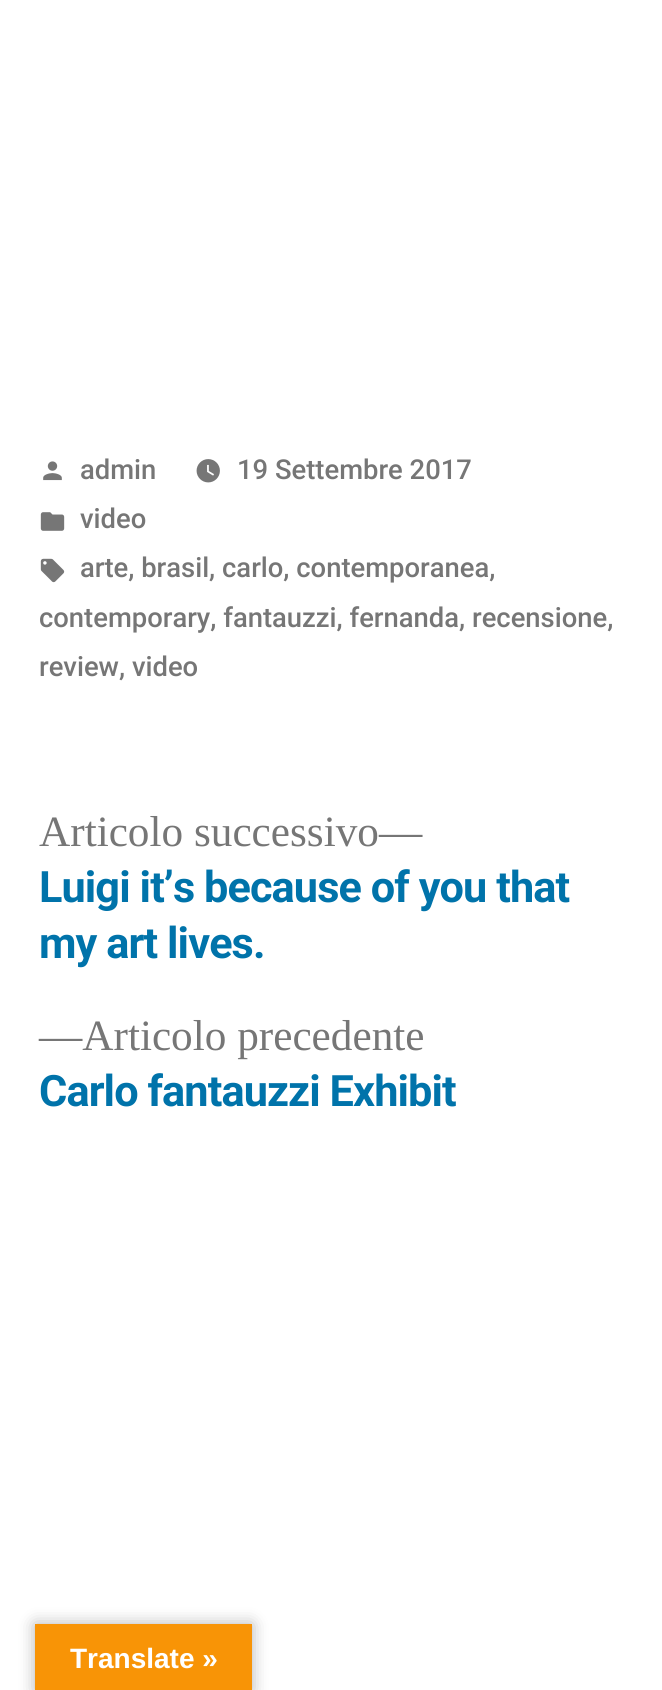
#include <cairo/cairo.h>
#include <math.h>
#include <stddef.h>

typedef struct { double x, y; const char *s; } line_t;
static cairo_t *cr;

static void rgb(unsigned color)
{
	cairo_set_source_rgb(cr, (color >> 16) / 255.0, (color >> 8 & 255) / 255.0, (color & 255) / 255.0);
}

static void tracked(double x, double y, const char *s, double letter, double word)
{
	cairo_move_to(cr, x, y);
	while (*s) {
		char ch[5] = {0};
		int n = 0;
		do ch[n++] = *s++; while ((*s & 0xC0) == 0x80);
		cairo_show_text(cr, ch);
		cairo_rel_move_to(cr, letter + word * (*ch == ' '), 0);
	}
}

static void rrect(double x, double y, double w, double h, double r)
{
	cairo_new_sub_path(cr);
	cairo_arc(cr, x + w - r, y + h - r, r, 0, M_PI / 2);
	cairo_arc(cr, x + r, y + h - r, r, M_PI / 2, M_PI);
	cairo_arc(cr, x + r, y + r, r, M_PI, 1.5 * M_PI);
	cairo_arc(cr, x + w - r, y + r, r, 1.5 * M_PI, 2 * M_PI);
	cairo_close_path(cr);
}

static void soft_shadow(double x, double y, double w, double h, double r, double blur, double alpha)
{
	cairo_push_group_with_content(cr, CAIRO_CONTENT_ALPHA);
	cairo_set_operator(cr, CAIRO_OPERATOR_SOURCE);
	for (int i = 15; i >= -15 && fmin(w, h) + blur * i / 3 > 0; i -= 2) {
		double e = blur * i / 6;
		cairo_set_source_rgba(cr, 0, 0, 0, alpha * erfc((i - 1) / 8.5) / 2);
		rrect(x - e, y - e, w + 2 * e, h + 2 * e, fmax(0, fmin(r + e + blur * .6, fmin(w, h) / 2 + e)));
		cairo_fill(cr);
	}
	cairo_pattern_t *soft = cairo_pop_group(cr);
	cairo_mask(cr, soft);
	cairo_pattern_destroy(soft);
}

static void image(const char *path, double x, double y, double w, double h)
{
	cairo_surface_t *image = cairo_image_surface_create_from_png(path);
	cairo_save(cr);
	cairo_set_source_surface(cr, image, x, y);
	cairo_rectangle(cr, x, y, w, h);
	cairo_fill(cr);
	cairo_restore(cr);
	cairo_surface_destroy(image);
}

int main(void) {
	cairo_surface_t *surface = cairo_image_surface_create(CAIRO_FORMAT_RGB24, 662, 1690);
	cr = cairo_create(surface);
	cairo_font_options_t *options = cairo_font_options_create();
	cairo_font_options_set_hint_metrics(options, CAIRO_HINT_METRICS_OFF);
	cairo_font_options_set_hint_style(options, CAIRO_HINT_STYLE_NONE);
	cairo_set_font_options(cr, options);
	cairo_set_miter_limit(cr, 4);
	rgb(0xffffff);
	cairo_paint(cr);
	image("img/1.png", 43, 461, 19, 20);
	image("img/2.png", 196, 459, 24, 24);
	image("img/3.png", 40, 512, 25, 19);
	image("img/4.png", 40, 558, 25, 25);
	rgb(0x000000);
	soft_shadow(35, 1624, 217, 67, 0, 8, 0.3);
	rgb(0xf89406);
	cairo_rectangle(cr, 35, 1624, 217, 66);
	cairo_fill(cr);
	cairo_select_font_face(cr, "Roboto Medium", CAIRO_FONT_SLANT_NORMAL, CAIRO_FONT_WEIGHT_NORMAL);
	cairo_set_font_size(cr, 27.4);
	rgb(0x767676);
	{
		static const line_t items[] = {
			{80, 479, "admin"},
			{237, 479, "19 Settembre 2017"},
			{80, 528, "video"},
			{80, 577, "arte, brasil, carlo, contemporanea,"},
			{39, 627, "contemporary, fantauzzi, fernanda, recensione,"},
			{39, 676, "review, video"},
		};
		for (size_t i = 0; i < sizeof items / sizeof *items; i++) {
			cairo_move_to(cr, items[i].x, items[i].y);
			cairo_show_text(cr, items[i].s);
		}
	}
	cairo_select_font_face(cr, "Liberation Serif", CAIRO_FONT_SLANT_NORMAL, CAIRO_FONT_WEIGHT_NORMAL);
	cairo_set_font_size(cr, 43.25);
	cairo_move_to(cr, 39, 846);
	cairo_show_text(cr, "Articolo successivo—");
	cairo_select_font_face(cr, "Roboto", CAIRO_FONT_SLANT_NORMAL, CAIRO_FONT_WEIGHT_BOLD);
	rgb(0x0073aa);
	tracked(39, 902, "Luigi it’s because of you that", -0.9, 0);
	tracked(39, 958, "my art lives.", -0.9, 0);
	cairo_select_font_face(cr, "Liberation Serif", CAIRO_FONT_SLANT_NORMAL, CAIRO_FONT_WEIGHT_NORMAL);
	rgb(0x767676);
	cairo_move_to(cr, 39, 1050);
	cairo_show_text(cr, "—Articolo precedente");
	cairo_select_font_face(cr, "Roboto", CAIRO_FONT_SLANT_NORMAL, CAIRO_FONT_WEIGHT_BOLD);
	rgb(0x0073aa);
	tracked(39, 1106, "Carlo fantauzzi Exhibit", -0.9, 0);
	cairo_select_font_face(cr, "Liberation Sans", CAIRO_FONT_SLANT_NORMAL, CAIRO_FONT_WEIGHT_BOLD);
	cairo_set_font_size(cr, 28);
	rgb(0xffffff);
	cairo_move_to(cr, 70, 1668);
	cairo_show_text(cr, "Translate »");
	cairo_surface_write_to_png(surface, "page.png");
	cairo_font_options_destroy(options);
	cairo_destroy(cr);
	cairo_surface_destroy(surface);
	return 0;
}
